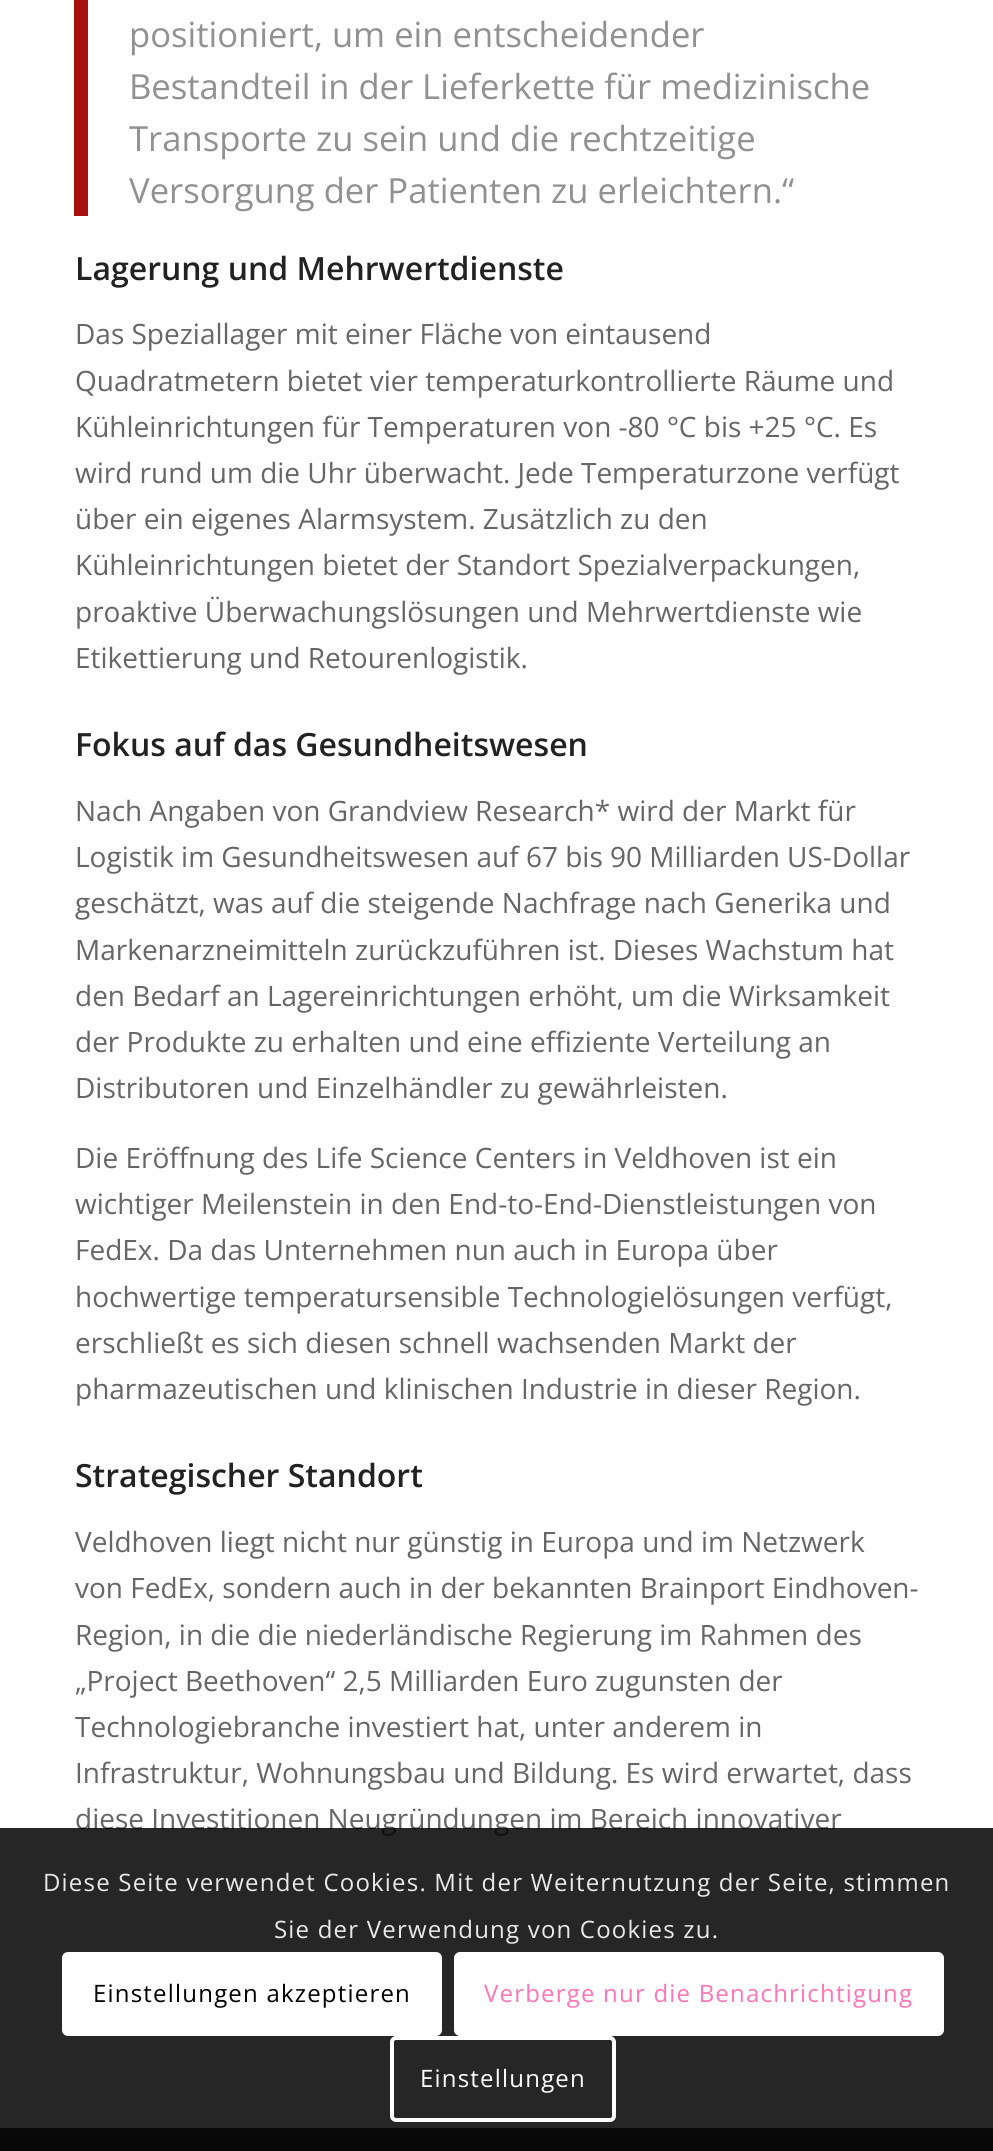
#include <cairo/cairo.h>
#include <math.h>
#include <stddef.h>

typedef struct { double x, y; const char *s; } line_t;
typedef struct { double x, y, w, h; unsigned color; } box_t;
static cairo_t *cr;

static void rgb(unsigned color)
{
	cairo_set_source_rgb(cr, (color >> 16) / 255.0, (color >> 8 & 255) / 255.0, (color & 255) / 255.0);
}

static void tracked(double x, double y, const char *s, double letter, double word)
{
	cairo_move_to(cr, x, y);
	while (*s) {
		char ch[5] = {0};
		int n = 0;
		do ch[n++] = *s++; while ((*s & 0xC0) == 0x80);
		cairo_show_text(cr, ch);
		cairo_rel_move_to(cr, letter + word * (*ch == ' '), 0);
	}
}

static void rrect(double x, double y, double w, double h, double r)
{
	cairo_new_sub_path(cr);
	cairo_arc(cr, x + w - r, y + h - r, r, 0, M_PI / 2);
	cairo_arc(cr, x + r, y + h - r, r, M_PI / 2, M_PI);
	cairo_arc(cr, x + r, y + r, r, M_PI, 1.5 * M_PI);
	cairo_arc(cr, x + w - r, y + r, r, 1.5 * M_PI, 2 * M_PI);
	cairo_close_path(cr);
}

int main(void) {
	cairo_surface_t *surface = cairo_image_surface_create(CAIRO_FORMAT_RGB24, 993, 2151);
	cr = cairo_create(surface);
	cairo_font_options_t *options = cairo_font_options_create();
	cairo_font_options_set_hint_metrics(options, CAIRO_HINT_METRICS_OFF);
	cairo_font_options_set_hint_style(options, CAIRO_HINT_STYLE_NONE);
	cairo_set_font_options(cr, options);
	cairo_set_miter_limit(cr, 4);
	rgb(0xffffff);
	cairo_paint(cr);
	{
		static const box_t items[] = {
			{74, 0, 14, 216, 0xa81010},
			{0, 2130, 993, 21, 0x333333},
			{0, 2128, 993, 2, 0x444444},
		};
		for (size_t i = 0; i < sizeof items / sizeof *items; i++) {
			rgb(items[i].color);
			cairo_rectangle(cr, items[i].x, items[i].y, items[i].w, items[i].h);
			cairo_fill(cr);
		}
	}
	cairo_select_font_face(cr, "Open Sans", CAIRO_FONT_SLANT_NORMAL, CAIRO_FONT_WEIGHT_NORMAL);
	cairo_set_font_size(cr, 34.6);
	rgb(0x919191);
	{
		static const line_t items[] = {
			{129, 47, "positioniert, um ein entscheidender"},
			{129, 99, "Bestandteil in der Lieferkette für medizinische"},
			{129, 151, "Transporte zu sein und die rechtzeitige"},
			{129, 203, "Versorgung der Patienten zu erleichtern.“"},
		};
		for (size_t i = 0; i < sizeof items / sizeof *items; i++) {
			cairo_move_to(cr, items[i].x, items[i].y);
			cairo_show_text(cr, items[i].s);
		}
	}
	cairo_select_font_face(cr, "Open Sans SemiBold", CAIRO_FONT_SLANT_NORMAL, CAIRO_FONT_WEIGHT_NORMAL);
	cairo_set_font_size(cr, 32);
	rgb(0x222222);
	cairo_move_to(cr, 75, 280);
	cairo_show_text(cr, "Lagerung und Mehrwertdienste");
	cairo_select_font_face(cr, "Open Sans", CAIRO_FONT_SLANT_NORMAL, CAIRO_FONT_WEIGHT_NORMAL);
	cairo_set_font_size(cr, 28);
	rgb(0x666666);
	{
		static const line_t items[] = {
			{75, 344, "Das Speziallager mit einer Fläche von eintausend"},
			{75, 391, "Quadratmetern bietet vier temperaturkontrollierte Räume und"},
			{75, 437, "Kühleinrichtungen für Temperaturen von -80 °C bis +25 °C. Es"},
			{75, 483, "wird rund um die Uhr überwacht. Jede Temperaturzone verfügt"},
			{75, 529, "über ein eigenes Alarmsystem. Zusätzlich zu den"},
			{75, 575, "Kühleinrichtungen bietet der Standort Spezialverpackungen,"},
			{75, 622, "proaktive Überwachungslösungen und Mehrwertdienste wie"},
			{75, 668, "Etikettierung und Retourenlogistik."},
		};
		for (size_t i = 0; i < sizeof items / sizeof *items; i++) {
			cairo_move_to(cr, items[i].x, items[i].y);
			cairo_show_text(cr, items[i].s);
		}
	}
	cairo_select_font_face(cr, "Open Sans SemiBold", CAIRO_FONT_SLANT_NORMAL, CAIRO_FONT_WEIGHT_NORMAL);
	cairo_set_font_size(cr, 32);
	rgb(0x222222);
	cairo_move_to(cr, 75, 756);
	cairo_show_text(cr, "Fokus auf das Gesundheitswesen");
	cairo_select_font_face(cr, "Open Sans", CAIRO_FONT_SLANT_NORMAL, CAIRO_FONT_WEIGHT_NORMAL);
	cairo_set_font_size(cr, 28);
	rgb(0x666666);
	{
		static const line_t items[] = {
			{75, 821, "Nach Angaben von Grandview Research* wird der Markt für"},
			{75, 867, "Logistik im Gesundheitswesen auf 67 bis 90 Milliarden US-Dollar"},
			{75, 913, "geschätzt, was auf die steigende Nachfrage nach Generika und"},
			{75, 960, "Markenarzneimitteln zurückzuführen ist. Dieses Wachstum hat"},
			{75, 1006, "den Bedarf an Lagereinrichtungen erhöht, um die Wirksamkeit"},
			{75, 1052, "der Produkte zu erhalten und eine effiziente Verteilung an"},
			{75, 1098, "Distributoren und Einzelhändler zu gewährleisten."},
			{75, 1168, "Die Eröffnung des Life Science Centers in Veldhoven ist ein"},
			{75, 1214, "wichtiger Meilenstein in den End-to-End-Dienstleistungen von"},
			{75, 1260, "FedEx. Da das Unternehmen nun auch in Europa über"},
			{75, 1307, "hochwertige temperatursensible Technologielösungen verfügt,"},
			{75, 1353, "erschließt es sich diesen schnell wachsenden Markt der"},
			{75, 1399, "pharmazeutischen und klinischen Industrie in dieser Region."},
		};
		for (size_t i = 0; i < sizeof items / sizeof *items; i++) {
			cairo_move_to(cr, items[i].x, items[i].y);
			cairo_show_text(cr, items[i].s);
		}
	}
	cairo_select_font_face(cr, "Open Sans SemiBold", CAIRO_FONT_SLANT_NORMAL, CAIRO_FONT_WEIGHT_NORMAL);
	cairo_set_font_size(cr, 32);
	rgb(0x222222);
	cairo_move_to(cr, 75, 1487);
	cairo_show_text(cr, "Strategischer Standort");
	cairo_select_font_face(cr, "Open Sans", CAIRO_FONT_SLANT_NORMAL, CAIRO_FONT_WEIGHT_NORMAL);
	cairo_set_font_size(cr, 28);
	rgb(0x666666);
	{
		static const line_t items[] = {
			{75, 1552, "Veldhoven liegt nicht nur günstig in Europa und im Netzwerk"},
			{75, 1598, "von FedEx, sondern auch in der bekannten Brainport Eindhoven-"},
			{75, 1645, "Region, in die die niederländische Regierung im Rahmen des"},
			{75, 1691, "„Project Beethoven“ 2,5 Milliarden Euro zugunsten der"},
			{75, 1737, "Technologiebranche investiert hat, unter anderem in"},
			{75, 1783, "Infrastruktur, Wohnungsbau und Bildung. Es wird erwartet, dass"},
			{75, 1829, "diese Investitionen Neugründungen im Bereich innovativer"},
		};
		for (size_t i = 0; i < sizeof items / sizeof *items; i++) {
			cairo_move_to(cr, items[i].x, items[i].y);
			cairo_show_text(cr, items[i].s);
		}
	}
	cairo_set_source_rgba(cr, 0, 0, 0, 0.85);
	cairo_rectangle(cr, 0, 1828, 993, 323);
	cairo_fill(cr);
	cairo_set_font_size(cr, 24);
	rgb(0xe9e9e9);
	tracked(43, 1891, "Diese Seite verwendet Cookies. Mit der Weiternutzung der Seite, stimmen", 1.2, 0);
	tracked(274, 1938, "Sie der Verwendung von Cookies zu.", 1.2, 0);
	rgb(0xffffff);
	rrect(62, 1952, 380, 84, 6);
	cairo_fill(cr);
	rgb(0x000000);
	tracked(93, 2002, "Einstellungen akzeptieren", 1.2, 0);
	rgb(0xffffff);
	rrect(456, 1954, 486, 80, 4);
	cairo_fill_preserve(cr);
	cairo_set_line_width(cr, 4);
	cairo_stroke(cr);
	rgb(0xff75b5);
	tracked(484, 2002, "Verberge nur die Benachrichtigung", 1.2, 0);
	rrect(392, 2038, 222, 82, 4);
	rgb(0xffffff);
	cairo_stroke(cr);
	tracked(420, 2087, "Einstellungen", 1.2, 0);
	cairo_surface_write_to_png(surface, "page.png");
	cairo_font_options_destroy(options);
	cairo_destroy(cr);
	cairo_surface_destroy(surface);
	return 0;
}
